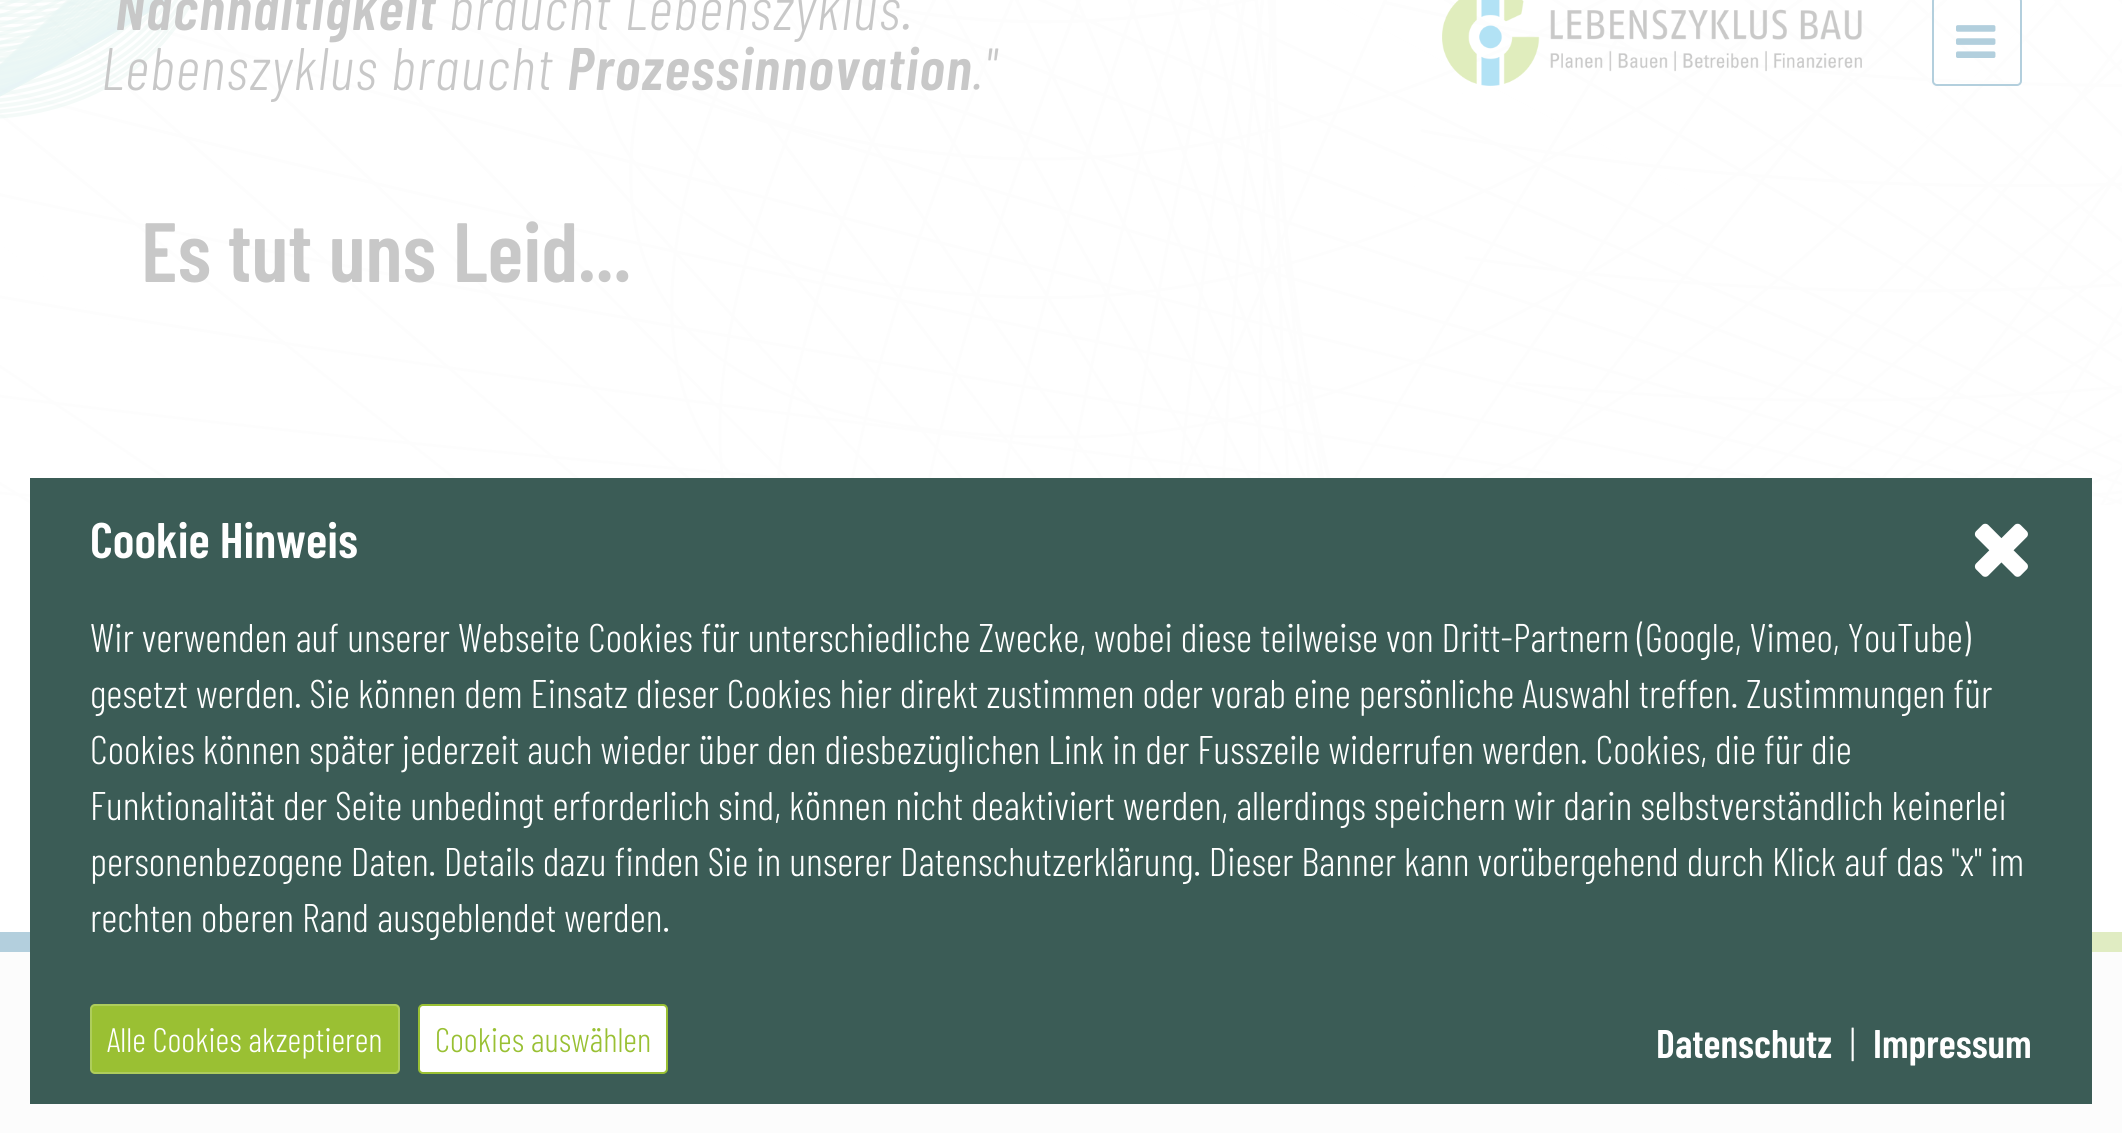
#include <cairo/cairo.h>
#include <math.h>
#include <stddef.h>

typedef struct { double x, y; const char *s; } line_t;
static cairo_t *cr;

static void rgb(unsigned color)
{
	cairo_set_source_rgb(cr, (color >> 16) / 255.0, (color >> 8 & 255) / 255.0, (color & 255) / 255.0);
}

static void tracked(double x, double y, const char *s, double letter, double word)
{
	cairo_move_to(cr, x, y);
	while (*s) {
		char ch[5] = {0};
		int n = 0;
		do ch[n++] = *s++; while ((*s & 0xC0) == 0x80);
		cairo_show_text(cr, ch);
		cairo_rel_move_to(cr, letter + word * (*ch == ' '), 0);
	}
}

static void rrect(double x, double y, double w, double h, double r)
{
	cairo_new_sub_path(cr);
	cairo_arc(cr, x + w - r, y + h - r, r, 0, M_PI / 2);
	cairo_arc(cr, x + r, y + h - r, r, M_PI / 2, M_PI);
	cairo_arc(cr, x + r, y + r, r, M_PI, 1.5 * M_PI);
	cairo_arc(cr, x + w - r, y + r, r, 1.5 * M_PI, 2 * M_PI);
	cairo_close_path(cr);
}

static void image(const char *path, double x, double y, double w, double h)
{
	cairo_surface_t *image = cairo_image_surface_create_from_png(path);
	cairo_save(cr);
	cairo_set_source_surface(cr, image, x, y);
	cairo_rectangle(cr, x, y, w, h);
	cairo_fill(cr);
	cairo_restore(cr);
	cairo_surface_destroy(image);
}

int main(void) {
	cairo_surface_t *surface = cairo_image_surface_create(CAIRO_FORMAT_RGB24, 2122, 1133);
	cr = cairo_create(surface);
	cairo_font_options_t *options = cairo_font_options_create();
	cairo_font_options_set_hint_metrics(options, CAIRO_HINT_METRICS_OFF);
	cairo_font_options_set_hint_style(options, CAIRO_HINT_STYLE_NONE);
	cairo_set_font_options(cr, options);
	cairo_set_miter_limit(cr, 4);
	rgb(0xffffff);
	cairo_paint(cr);
	image("img/1.png", 0, 0, 2122, 505);
	image("img/2.png", 1442, 0, 420, 86);
	rrect(1933, -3, 88, 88, 4);
	rgb(0xb3cfdd);
	cairo_stroke(cr);
	image("img/3.png", 1956, 25, 40, 33);
	rgb(0xfcfcfc);
	cairo_rectangle(cr, 0, 952, 2122, 181);
	cairo_fill(cr);
	rgb(0x3b5c56);
	cairo_rectangle(cr, 30, 478, 2062, 626);
	cairo_fill(cr);
	image("img/4.png", 1974, 523, 54, 54);
	rgb(0x9ac033);
	rrect(90, 1004, 310, 70, 5);
	cairo_fill(cr);
	rrect(91, 1005, 308, 68, 4);
	cairo_set_source_rgba(cr, 1, 1, 1, 0.2);
	cairo_stroke(cr);
	rgb(0xffffff);
	rrect(419, 1005, 248, 68, 4);
	cairo_fill_preserve(cr);
	rgb(0x99c033);
	cairo_stroke(cr);
	rgb(0xb3cfdd);
	cairo_rectangle(cr, 0, 932, 30, 20);
	cairo_fill(cr);
	rgb(0xe0ecc2);
	cairo_rectangle(cr, 2092, 932, 30, 20);
	cairo_fill(cr);
	cairo_select_font_face(cr, "Barlow Condensed SemiBold", CAIRO_FONT_SLANT_ITALIC, CAIRO_FONT_WEIGHT_NORMAL);
	cairo_set_font_size(cr, 60);
	rgb(0xc8c8c8);
	tracked(115, 30, "Nachhaltigkeit", 1.5, 0);
	cairo_select_font_face(cr, "Barlow Condensed Light", CAIRO_FONT_SLANT_ITALIC, CAIRO_FONT_WEIGHT_NORMAL);
	tracked(449, 30, "braucht Lebenszyklus.", 1.5, 0);
	tracked(101, 90, "Lebenszyklus braucht", 1.5, 0);
	cairo_select_font_face(cr, "Barlow Condensed SemiBold", CAIRO_FONT_SLANT_ITALIC, CAIRO_FONT_WEIGHT_NORMAL);
	tracked(567, 90, "Prozessinnovation", 1.5, 0);
	cairo_select_font_face(cr, "Barlow Condensed Light", CAIRO_FONT_SLANT_ITALIC, CAIRO_FONT_WEIGHT_NORMAL);
	tracked(972, 90, ".\"", 1.5, 0);
	cairo_select_font_face(cr, "Barlow Condensed SemiBold", CAIRO_FONT_SLANT_NORMAL, CAIRO_FONT_WEIGHT_NORMAL);
	cairo_set_font_size(cr, 84);
	cairo_move_to(cr, 141, 282);
	cairo_show_text(cr, "Es tut uns Leid...");
	cairo_set_font_size(cr, 50);
	rgb(0xffffff);
	cairo_move_to(cr, 90, 558);
	cairo_show_text(cr, "Cookie Hinweis");
	cairo_select_font_face(cr, "Barlow Condensed Light", CAIRO_FONT_SLANT_NORMAL, CAIRO_FONT_WEIGHT_NORMAL);
	cairo_set_font_size(cr, 40);
	{
		static const line_t items[] = {
			{90, 652, "Wir verwenden auf unserer Webseite Cookies für unterschiedliche Zwecke, wobei diese teilweise von Dritt-Partnern (Google, Vimeo, YouTube)"},
			{90, 708, "gesetzt werden. Sie können dem Einsatz dieser Cookies hier direkt zustimmen oder vorab eine persönliche Auswahl treffen. Zustimmungen für"},
			{90, 764, "Cookies können später jederzeit auch wieder über den diesbezüglichen Link in der Fusszeile widerrufen werden. Cookies, die für die"},
			{90, 820, "Funktionalität der Seite unbedingt erforderlich sind, können nicht deaktiviert werden, allerdings speichern wir darin selbstverständlich keinerlei"},
			{90, 876, "personenbezogene Daten. Details dazu finden Sie in unserer Datenschutzerklärung. Dieser Banner kann vorübergehend durch Klick auf das \"x\" im"},
			{90, 932, "rechten oberen Rand ausgeblendet werden."},
		};
		for (size_t i = 0; i < sizeof items / sizeof *items; i++) {
			cairo_move_to(cr, items[i].x, items[i].y);
			cairo_show_text(cr, items[i].s);
		}
	}
	cairo_set_font_size(cr, 34);
	cairo_move_to(cr, 107, 1052);
	cairo_show_text(cr, "Alle Cookies akzeptieren");
	rgb(0x99c033);
	cairo_move_to(cr, 435, 1052);
	cairo_show_text(cr, "Cookies auswählen");
	cairo_select_font_face(cr, "Barlow Condensed SemiBold", CAIRO_FONT_SLANT_NORMAL, CAIRO_FONT_WEIGHT_NORMAL);
	cairo_set_font_size(cr, 40);
	rgb(0xffffff);
	cairo_move_to(cr, 1656, 1058);
	cairo_show_text(cr, "Datenschutz");
	cairo_select_font_face(cr, "Barlow Condensed Light", CAIRO_FONT_SLANT_NORMAL, CAIRO_FONT_WEIGHT_NORMAL);
	cairo_move_to(cr, 1850, 1058);
	cairo_show_text(cr, "|");
	cairo_select_font_face(cr, "Barlow Condensed SemiBold", CAIRO_FONT_SLANT_NORMAL, CAIRO_FONT_WEIGHT_NORMAL);
	cairo_move_to(cr, 1873, 1058);
	cairo_show_text(cr, "Impressum");
	cairo_surface_write_to_png(surface, "page.png");
	cairo_font_options_destroy(options);
	cairo_destroy(cr);
	cairo_surface_destroy(surface);
	return 0;
}
